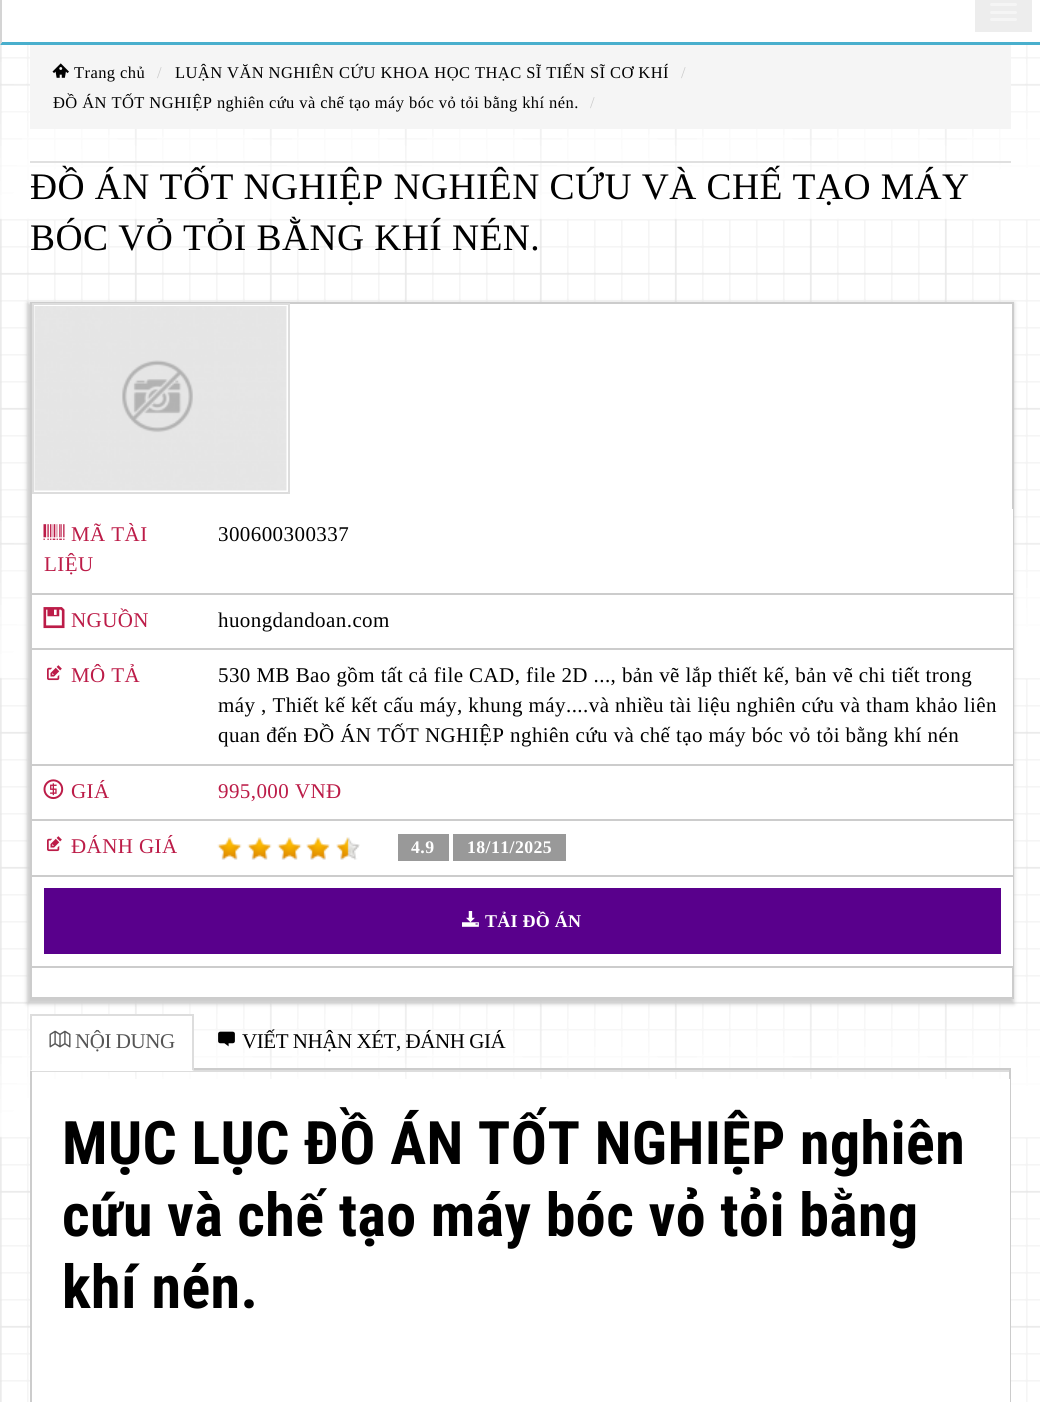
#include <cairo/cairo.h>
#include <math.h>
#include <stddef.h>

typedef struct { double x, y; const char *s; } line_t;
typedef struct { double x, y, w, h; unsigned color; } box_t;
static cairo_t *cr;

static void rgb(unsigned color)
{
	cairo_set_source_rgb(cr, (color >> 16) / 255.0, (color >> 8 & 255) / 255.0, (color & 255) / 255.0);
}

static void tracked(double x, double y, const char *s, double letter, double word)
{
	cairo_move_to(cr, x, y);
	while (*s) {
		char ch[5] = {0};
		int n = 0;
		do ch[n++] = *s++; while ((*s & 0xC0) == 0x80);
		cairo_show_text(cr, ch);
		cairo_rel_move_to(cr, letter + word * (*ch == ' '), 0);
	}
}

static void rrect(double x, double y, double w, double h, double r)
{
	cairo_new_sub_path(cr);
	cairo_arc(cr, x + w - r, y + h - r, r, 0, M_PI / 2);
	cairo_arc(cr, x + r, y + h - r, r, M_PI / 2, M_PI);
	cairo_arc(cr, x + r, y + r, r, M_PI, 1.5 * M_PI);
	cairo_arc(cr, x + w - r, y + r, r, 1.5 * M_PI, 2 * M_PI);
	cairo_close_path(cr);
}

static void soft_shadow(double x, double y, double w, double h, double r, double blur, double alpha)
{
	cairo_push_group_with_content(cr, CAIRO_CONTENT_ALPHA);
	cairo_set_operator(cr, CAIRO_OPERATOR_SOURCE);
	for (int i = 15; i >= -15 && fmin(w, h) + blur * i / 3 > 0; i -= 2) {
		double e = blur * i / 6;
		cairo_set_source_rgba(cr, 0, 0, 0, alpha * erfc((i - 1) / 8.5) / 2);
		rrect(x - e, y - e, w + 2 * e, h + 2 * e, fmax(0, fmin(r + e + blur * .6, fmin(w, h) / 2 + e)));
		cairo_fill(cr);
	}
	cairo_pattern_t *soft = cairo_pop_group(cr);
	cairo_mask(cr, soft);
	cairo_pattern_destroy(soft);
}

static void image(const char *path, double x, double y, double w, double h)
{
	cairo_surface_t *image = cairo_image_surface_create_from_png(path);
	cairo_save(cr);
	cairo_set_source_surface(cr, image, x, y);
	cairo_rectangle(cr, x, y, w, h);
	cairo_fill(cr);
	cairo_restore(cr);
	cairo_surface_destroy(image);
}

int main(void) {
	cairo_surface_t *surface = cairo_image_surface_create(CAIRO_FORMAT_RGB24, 1040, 1402);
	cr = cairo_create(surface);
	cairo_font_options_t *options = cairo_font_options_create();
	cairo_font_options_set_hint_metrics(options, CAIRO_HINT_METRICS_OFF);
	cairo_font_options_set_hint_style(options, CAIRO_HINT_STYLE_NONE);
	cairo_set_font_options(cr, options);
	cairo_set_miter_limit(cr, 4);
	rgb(0xffffff);
	cairo_paint(cr);
	image("img/1.png", 0, 42, 1040, 1360);
	image("img/2.png", 0, 42, 1040, 1360);
	rgb(0x49afcd);
	cairo_new_path(cr);
	cairo_move_to(cr, 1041, 45);
	cairo_line_to(cr, 0, 45);
	cairo_line_to(cr, 2, 42);
	cairo_line_to(cr, 1040, 42);
	cairo_close_path(cr);
	cairo_fill(cr);
	rgb(0xd4d4d4);
	cairo_new_path(cr);
	cairo_move_to(cr, 0, 45);
	cairo_line_to(cr, 0, -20);
	cairo_line_to(cr, 2, -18);
	cairo_line_to(cr, 2, 42);
	cairo_close_path(cr);
	cairo_fill(cr);
	rgb(0xededed);
	cairo_rectangle(cr, 975, 0, 57, 32);
	cairo_fill(cr);
	rgb(0xf5f5f5);
	rrect(990, 3, 27, 3, 1.5);
	cairo_fill(cr);
	rrect(990, 11, 27, 3, 1.5);
	cairo_fill(cr);
	rrect(990, 18, 27, 3, 1.5);
	cairo_fill(cr);
	cairo_rectangle(cr, 30, 45, 981, 84);
	cairo_fill(cr);
	image("img/3.png", 52, 63, 17, 15);
	rgb(0xe0e0e0);
	cairo_rectangle(cr, 30, 161, 981, 2);
	cairo_fill(cr);
	rgb(0xcccccc);
	soft_shadow(27, 303, 987, 701, 0, 2, 1);
	rgb(0xffffff);
	cairo_rectangle(cr, 31, 303, 982, 695);
	cairo_fill_preserve(cr);
	rgb(0xcccccc);
	cairo_stroke(cr);
	cairo_rectangle(cr, 33, 304, 256, 189);
	rgb(0xdddddd);
	cairo_stroke(cr);
	image("img/4.png", 34, 306, 253, 185);
	rgb(0xffffff);
	cairo_rectangle(cr, 1012, 509, 1, 457);
	cairo_fill(cr);
	rgb(0xcccccc);
	cairo_rectangle(cr, 32, 593, 982, 2);
	cairo_fill(cr);
	image("img/5.png", 43, 524, 22, 16);
	cairo_rectangle(cr, 32, 648, 982, 2);
	cairo_fill(cr);
	image("img/6.png", 43, 607, 22, 22);
	cairo_rectangle(cr, 32, 764, 982, 2);
	cairo_fill(cr);
	image("img/7.png", 47, 665, 15, 16);
	cairo_rectangle(cr, 32, 819, 982, 2);
	cairo_fill(cr);
	image("img/8.png", 43, 779, 21, 21);
	cairo_rectangle(cr, 32, 875, 982, 2);
	cairo_fill(cr);
	image("img/7.png", 47, 836, 15, 16);
	image("img/9.png", 217, 837, 25, 23);
	image("img/9.png", 247, 837, 25, 23);
	image("img/9.png", 277, 837, 25, 23);
	image("img/10.png", 306, 837, 24, 23);
	image("img/11.png", 336, 837, 24, 23);
	{
		static const box_t items[] = {
			{398, 834, 51, 27, 0x999999},
			{453, 834, 113, 27, 0x999999},
			{32, 966, 982, 2, 0xcccccc},
		};
		for (size_t i = 0; i < sizeof items / sizeof *items; i++) {
			rgb(items[i].color);
			cairo_rectangle(cr, items[i].x, items[i].y, items[i].w, items[i].h);
			cairo_fill(cr);
		}
	}
	rgb(0x59008c);
	cairo_rectangle(cr, 45.5, 889.5, 954, 63);
	cairo_fill_preserve(cr);
	cairo_set_line_width(cr, 3);
	cairo_stroke(cr);
	image("img/12.png", 462, 911, 17, 16);
	rgb(0xdddddd);
	cairo_rectangle(cr, 30, 1070, 981, 2);
	cairo_fill(cr);
	cairo_rectangle(cr, 31, 1069, 979, 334);
	rgb(0xcccccc);
	cairo_set_line_width(cr, 2);
	cairo_stroke(cr);
	rgb(0xffffff);
	cairo_rectangle(cr, 30, 1016, 164, 55);
	cairo_fill(cr);
	rgb(0xdddddd);
	cairo_rectangle(cr, 30, 1014, 164, 2);
	cairo_fill(cr);
	cairo_new_path(cr);
	cairo_move_to(cr, 194, 1014);
	cairo_line_to(cr, 194, 1071);
	cairo_line_to(cr, 192, 1070);
	cairo_line_to(cr, 192, 1016);
	cairo_close_path(cr);
	cairo_fill(cr);
	cairo_new_path(cr);
	cairo_move_to(cr, 30, 1071);
	cairo_line_to(cr, 30, 1014);
	cairo_line_to(cr, 32, 1016);
	cairo_line_to(cr, 32, 1070);
	cairo_close_path(cr);
	cairo_fill(cr);
	image("img/13.png", 49, 1030, 22, 18);
	image("img/14.png", 218, 1031, 17, 16);
	rgb(0xffffff);
	cairo_rectangle(cr, 32, 1079, 978, 323);
	cairo_fill(cr);
	cairo_select_font_face(cr, "Liberation Serif", CAIRO_FONT_SLANT_NORMAL, CAIRO_FONT_WEIGHT_NORMAL);
	cairo_set_font_size(cr, 16.5);
	rgb(0x000000);
	tracked(74, 78, "Trang chủ", 0.42, 0);
	rgb(0xcccccc);
	tracked(157, 78, "/", 0.42, 0);
	rgb(0x000000);
	tracked(175, 78, "LUẬN VĂN NGHIÊN CỨU KHOA HỌC THẠC SĨ TIẾN SĨ CƠ KHÍ", 0.42, 0);
	rgb(0xcccccc);
	tracked(681, 78, "/", 0.42, 0);
	rgb(0x000000);
	tracked(53, 108, "ĐỒ ÁN TỐT NGHIỆP nghiên cứu và chế tạo máy bóc vỏ tỏi bằng khí nén.", 0.42, 0);
	rgb(0xcccccc);
	tracked(590, 108, "/", 0.42, 0);
	cairo_set_font_size(cr, 37.5);
	rgb(0x000000);
	tracked(30, 199, "ĐỒ ÁN TỐT NGHIỆP NGHIÊN CỨU VÀ CHẾ TẠO MÁY", 0.42, 0);
	tracked(30, 250, "BÓC VỎ TỎI BẰNG KHÍ NÉN.", 0.42, 0);
	cairo_set_font_size(cr, 21);
	rgb(0xbc1c48);
	tracked(71, 541, "MÃ TÀI", 0.42, 0);
	tracked(44, 571, "LIỆU", 0.42, 0);
	rgb(0x000000);
	tracked(218, 541, "300600300337", 0.42, 0);
	rgb(0xbc1c48);
	tracked(71, 627, "NGUỒN", 0.42, 0);
	rgb(0x000000);
	tracked(218, 627, "huongdandoan.com", 0.42, 0);
	rgb(0xbc1c48);
	tracked(71, 682, "MÔ TẢ", 0.42, 0);
	rgb(0x000000);
	{
		static const line_t items[] = {
			{218, 682, "530 MB Bao gồm tất cả file CAD, file 2D ..., bản vẽ lắp thiết kế, bản vẽ chi tiết trong"},
			{218, 712, "máy , Thiết kế kết cấu máy, khung máy....và nhiều tài liệu nghiên cứu và tham khảo liên"},
			{218, 742, "quan đến ĐỒ ÁN TỐT NGHIỆP nghiên cứu và chế tạo máy bóc vỏ tỏi bằng khí nén"},
		};
		for (size_t i = 0; i < sizeof items / sizeof *items; i++) {
			tracked(items[i].x, items[i].y, items[i].s, 0.42, 0);
		}
	}
	rgb(0xbc1c48);
	{
		static const line_t items[] = {
			{71, 798, "GIÁ"},
			{218, 798, "995,000 VNĐ"},
			{71, 853, "ĐÁNH GIÁ"},
		};
		for (size_t i = 0; i < sizeof items / sizeof *items; i++) {
			tracked(items[i].x, items[i].y, items[i].s, 0.42, 0);
		}
	}
	cairo_select_font_face(cr, "Liberation Serif", CAIRO_FONT_SLANT_NORMAL, CAIRO_FONT_WEIGHT_BOLD);
	cairo_set_font_size(cr, 17.75);
	rgb(0xffffff);
	tracked(411, 853, "4.9", 0.42, 0);
	tracked(467, 853, "18/11/2025", 0.42, 0);
	cairo_set_font_size(cr, 18);
	tracked(485, 927, "TẢI ĐỒ ÁN", 0.25, 0);
	cairo_select_font_face(cr, "Liberation Serif", CAIRO_FONT_SLANT_NORMAL, CAIRO_FONT_WEIGHT_NORMAL);
	cairo_set_font_size(cr, 21);
	rgb(0x555555);
	tracked(75, 1048, "NỘI DUNG", -0.45, 0);
	rgb(0x000000);
	tracked(242, 1048, "VIẾT NHẬN XÉT, ĐÁNH GIÁ", -0.45, 0);
	cairo_select_font_face(cr, "Roboto Condensed", CAIRO_FONT_SLANT_NORMAL, CAIRO_FONT_WEIGHT_BOLD);
	cairo_set_font_size(cr, 60);
	{
		static const line_t items[] = {
			{62, 1164, "MỤC LỤC ĐỒ ÁN TỐT NGHIỆP nghiên"},
			{62, 1236, "cứu và chế tạo máy bóc vỏ tỏi bằng"},
			{62, 1308, "khí nén."},
		};
		for (size_t i = 0; i < sizeof items / sizeof *items; i++) {
			tracked(items[i].x, items[i].y, items[i].s, 0.42, 0);
		}
	}
	cairo_surface_write_to_png(surface, "page.png");
	cairo_font_options_destroy(options);
	cairo_destroy(cr);
	cairo_surface_destroy(surface);
	return 0;
}
